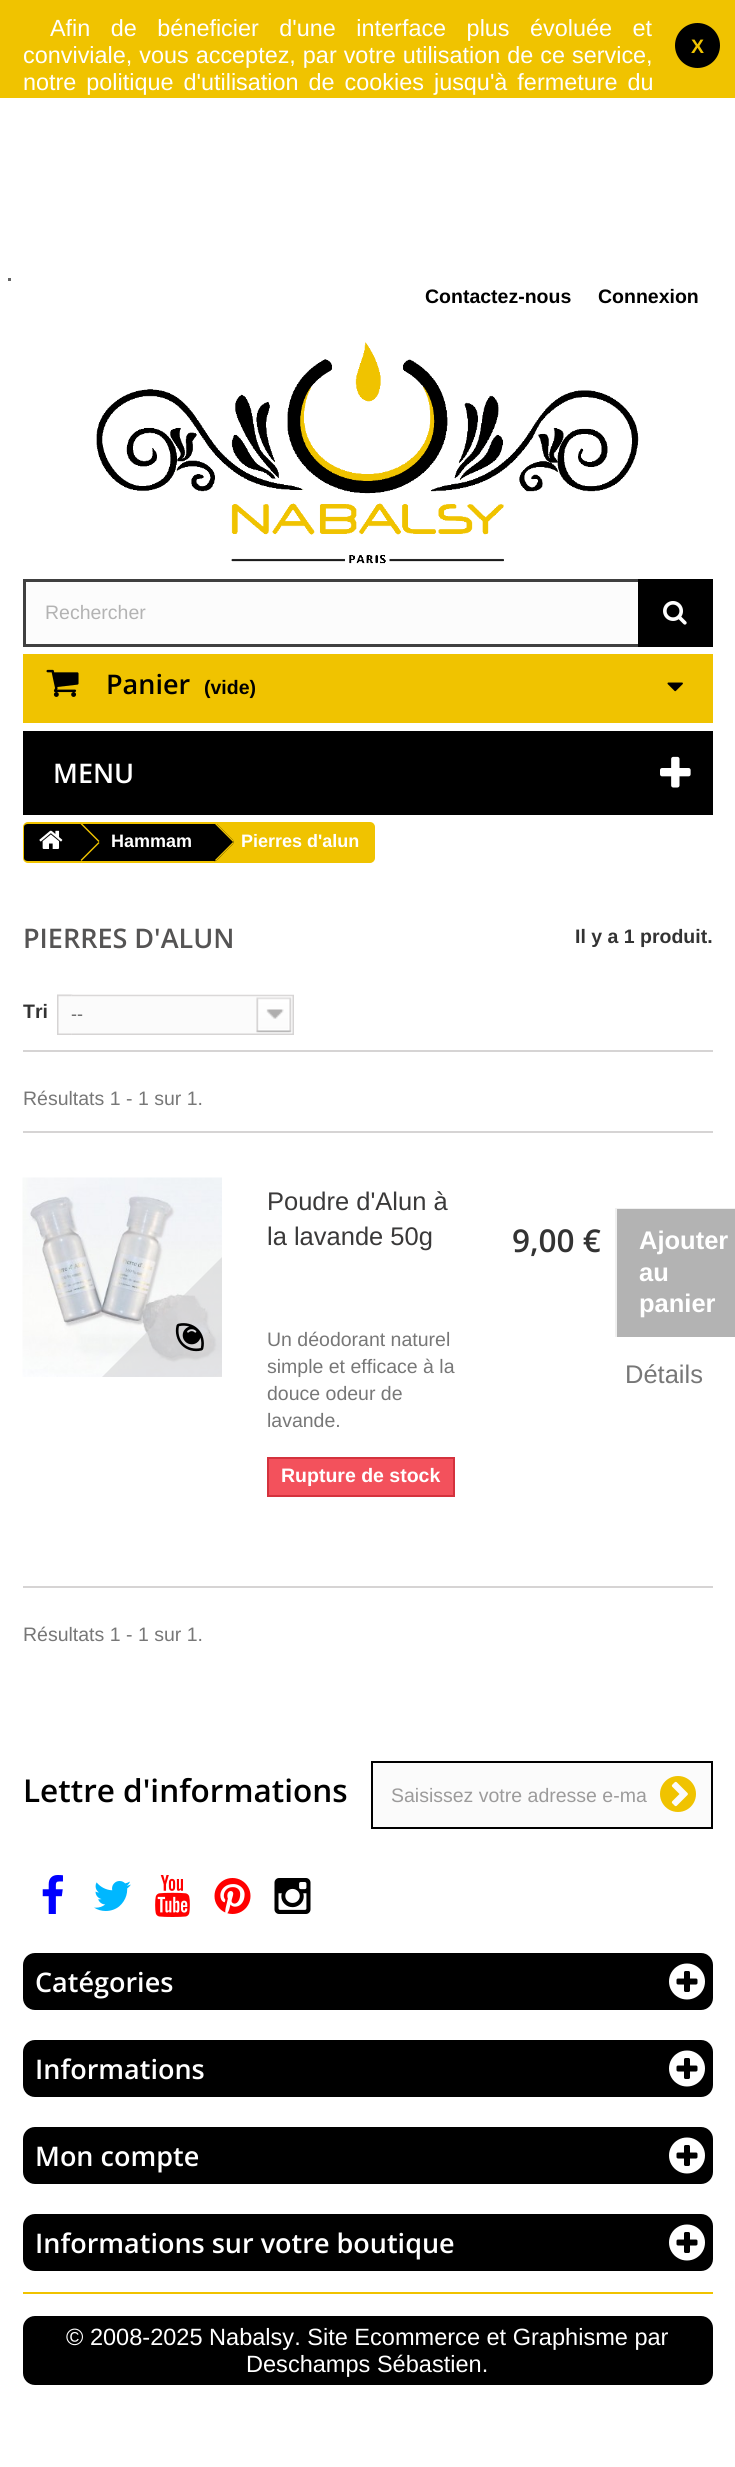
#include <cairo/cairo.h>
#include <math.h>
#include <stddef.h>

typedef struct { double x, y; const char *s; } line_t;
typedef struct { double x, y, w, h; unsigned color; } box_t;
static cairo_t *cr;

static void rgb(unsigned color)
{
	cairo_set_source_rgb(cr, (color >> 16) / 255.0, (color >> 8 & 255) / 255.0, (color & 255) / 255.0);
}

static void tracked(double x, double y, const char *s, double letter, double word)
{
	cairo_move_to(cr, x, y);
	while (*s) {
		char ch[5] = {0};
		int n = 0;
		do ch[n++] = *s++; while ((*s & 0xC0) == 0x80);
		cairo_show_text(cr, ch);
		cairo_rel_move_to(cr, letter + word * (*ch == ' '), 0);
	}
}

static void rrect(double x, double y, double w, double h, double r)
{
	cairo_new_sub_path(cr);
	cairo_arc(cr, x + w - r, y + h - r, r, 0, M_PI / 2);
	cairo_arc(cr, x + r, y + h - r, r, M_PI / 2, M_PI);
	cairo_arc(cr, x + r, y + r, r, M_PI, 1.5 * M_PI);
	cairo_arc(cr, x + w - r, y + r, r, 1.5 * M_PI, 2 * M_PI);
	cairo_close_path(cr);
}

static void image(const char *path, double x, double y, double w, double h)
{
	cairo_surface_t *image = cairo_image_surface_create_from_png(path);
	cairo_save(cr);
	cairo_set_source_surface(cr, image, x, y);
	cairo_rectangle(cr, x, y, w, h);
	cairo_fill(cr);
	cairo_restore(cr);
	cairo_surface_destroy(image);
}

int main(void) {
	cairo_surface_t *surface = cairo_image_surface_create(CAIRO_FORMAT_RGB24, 735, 2467);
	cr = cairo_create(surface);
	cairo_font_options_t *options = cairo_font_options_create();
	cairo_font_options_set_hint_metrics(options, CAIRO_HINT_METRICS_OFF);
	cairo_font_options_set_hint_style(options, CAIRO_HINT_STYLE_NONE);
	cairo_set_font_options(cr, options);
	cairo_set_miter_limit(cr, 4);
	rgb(0xffffff);
	cairo_paint(cr);
	rgb(0xf0c300);
	cairo_rectangle(cr, 0, 0, 735, 98);
	cairo_fill(cr);
	rgb(0x000000);
	cairo_arc(cr, 697.5, 45.5, 22.5, 0, 2 * M_PI);
	cairo_fill(cr);
	rgb(0x646464);
	cairo_rectangle(cr, 8, 278, 3, 3);
	cairo_fill(cr);
	image("img/1.png", 96, 342, 543, 222);
	rgb(0xfcfcfc);
	cairo_rectangle(cr, 26, 582, 612, 62);
	cairo_fill(cr);
	cairo_rectangle(cr, 24.5, 580.5, 687, 65);
	rgb(0x404040);
	cairo_set_line_width(cr, 3);
	cairo_stroke(cr);
	rgb(0x000000);
	cairo_rectangle(cr, 638, 579, 75, 68);
	cairo_fill(cr);
	image("img/2.png", 663, 601, 24, 24);
	rgb(0xf0c300);
	cairo_rectangle(cr, 23, 654, 690, 69);
	cairo_fill(cr);
	image("img/3.png", 46, 669, 33, 28);
	image("img/4.png", 667, 682, 16, 10);
	rgb(0x000000);
	cairo_rectangle(cr, 23, 731, 690, 84);
	cairo_fill(cr);
	image("img/5.png", 660, 756, 31, 32);
	rgb(0xf0c300);
	rrect(24, 823, 350, 39, 4);
	cairo_fill_preserve(cr);
	cairo_set_line_width(cr, 2);
	cairo_stroke(cr);
	cairo_save(cr);
	rrect(24, 824, 350, 37, 3);
	cairo_clip(cr);
	rgb(0x000000);
	cairo_new_path(cr);
	cairo_move_to(cr, 28, 824);
	cairo_line_to(cr, 80, 824);
	cairo_line_to(cr, 80, 861);
	cairo_line_to(cr, 28, 861);
	cairo_curve_to(cr, 25, 861, 23, 859, 23, 856);
	cairo_line_to(cr, 23, 829);
	cairo_curve_to(cr, 23, 826, 25, 824, 28, 824);
	cairo_close_path(cr);
	cairo_fill(cr);
	cairo_restore(cr);
	image("img/6.png", 39, 830, 24, 19);
	rgb(0x000000);
	cairo_rectangle(cr, 80, 824, 134, 37);
	cairo_fill(cr);
	rgb(0xf0c300);
	cairo_new_path(cr);
	cairo_move_to(cr, 82.5, 824);
	cairo_line_to(cr, 99.5, 841);
	cairo_line_to(cr, 98.5, 842);
	cairo_line_to(cr, 80.5, 824);
	cairo_close_path(cr);
	cairo_move_to(cr, 98.5, 842);
	cairo_line_to(cr, 99.5, 843);
	cairo_line_to(cr, 81.5, 861);
	cairo_line_to(cr, 80.5, 860);
	cairo_close_path(cr);
	cairo_fill(cr);
	rgb(0x000000);
	cairo_new_path(cr);
	cairo_move_to(cr, 217, 824);
	cairo_line_to(cr, 212.5, 824);
	cairo_line_to(cr, 196.5, 840.5);
	cairo_line_to(cr, 196, 842);
	cairo_curve_to(cr, 196, 844, 203.5, 850.5, 205, 852);
	cairo_curve_to(cr, 216.5, 864.5, 213, 864, 225, 852);
	cairo_line_to(cr, 230.5, 846.5);
	cairo_curve_to(cr, 232, 845, 234.5, 843.5, 233.5, 841);
	cairo_line_to(cr, 233, 840);
	cairo_close_path(cr);
	cairo_fill(cr);
	rgb(0xf0c300);
	cairo_new_path(cr);
	cairo_move_to(cr, 217, 824);
	cairo_line_to(cr, 234, 841);
	cairo_line_to(cr, 233, 842);
	cairo_line_to(cr, 215, 824);
	cairo_close_path(cr);
	cairo_move_to(cr, 233, 842);
	cairo_line_to(cr, 234, 843);
	cairo_line_to(cr, 216, 861);
	cairo_line_to(cr, 215, 860);
	cairo_close_path(cr);
	cairo_fill(cr);
	rgb(0xd6d4d4);
	cairo_rectangle(cr, 23, 1050, 690, 2);
	cairo_fill(cr);
	image("img/7.png", 57, 994, 16, 41);
	image("img/8.png", 72, 994, 222, 41);
	cairo_rectangle(cr, 23, 1131, 690, 2);
	cairo_fill(cr);
	image("img/9.png", 22, 1177, 200, 200);
	cairo_save(cr);
	cairo_rectangle(cr, 0, 1145, 222, 232);
	cairo_clip(cr);
	cairo_set_source_rgba(cr, 0.816, 0.816, 0.827, 0.57);
	cairo_new_path(cr);
	cairo_move_to(cr, 231, 1248);
	cairo_line_to(cr, 321, 1338);
	cairo_line_to(cr, 183, 1476);
	cairo_line_to(cr, 93, 1386);
	cairo_close_path(cr);
	cairo_fill(cr);
	cairo_restore(cr);
	image("img/10.png", 175, 1323, 29, 29);
	rgb(0xf3515c);
	cairo_rectangle(cr, 268, 1458, 186, 38);
	cairo_fill_preserve(cr);
	rgb(0xd4323d);
	cairo_stroke(cr);
	{
		static const box_t items[] = {
			{615, 1208, 120, 1, 0xf0f0f0},
			{615, 1208, 2, 129, 0xf0f0f0},
			{617, 1209, 118, 128, 0xb3b3b3},
			{23, 1586, 690, 2, 0xd6d4d4},
		};
		for (size_t i = 0; i < sizeof items / sizeof *items; i++) {
			rgb(items[i].color);
			cairo_rectangle(cr, items[i].x, items[i].y, items[i].w, items[i].h);
			cairo_fill(cr);
		}
	}
	rgb(0xfbfbfb);
	cairo_rectangle(cr, 372, 1762, 340, 66);
	cairo_fill_preserve(cr);
	rgb(0x000000);
	cairo_stroke(cr);
	image("img/11.png", 660, 1776, 36, 36);
	image("img/12.png", 42, 1875, 21, 39);
	image("img/13.png", 94, 1881, 37, 30);
	image("img/14.png", 155, 1875, 35, 42);
	image("img/15.png", 214, 1878, 37, 36);
	image("img/16.png", 274, 1878, 37, 36);
	rrect(23, 1953, 690, 57, 12);
	cairo_fill(cr);
	image("img/17.png", 669, 1963, 36, 37);
	rrect(23, 2040, 690, 57, 12);
	cairo_fill(cr);
	image("img/17.png", 669, 2050, 36, 37);
	rrect(23, 2127, 690, 57, 12);
	cairo_fill(cr);
	image("img/17.png", 669, 2137, 36, 37);
	rrect(23, 2214, 690, 57, 12);
	cairo_fill(cr);
	image("img/17.png", 669, 2224, 36, 37);
	rgb(0xf0c300);
	cairo_rectangle(cr, 23, 2292, 690, 2);
	cairo_fill(cr);
	rgb(0x000000);
	rrect(23, 2316, 690, 69, 12);
	cairo_fill(cr);
	cairo_select_font_face(cr, "Liberation Sans", CAIRO_FONT_SLANT_NORMAL, CAIRO_FONT_WEIGHT_NORMAL);
	cairo_set_font_size(cr, 23.4);
	rgb(0xffffff);
	tracked(50, 36, "Afin de béneficier d'une interface plus évoluée et", 0, 14);
	tracked(23, 63, "conviviale, vous acceptez, par votre utilisation de ce service,", 0, 0.5);
	tracked(23, 90, "notre politique d'utilisation de cookies jusqu'à fermeture du", 0, 3.5);
	cairo_select_font_face(cr, "Liberation Sans", CAIRO_FONT_SLANT_NORMAL, CAIRO_FONT_WEIGHT_BOLD);
	cairo_set_font_size(cr, 19.5);
	rgb(0xf0c300);
	cairo_move_to(cr, 691, 53);
	cairo_show_text(cr, "X");
	rgb(0x000000);
	cairo_move_to(cr, 425, 303);
	cairo_show_text(cr, "Contactez-nous");
	cairo_move_to(cr, 598, 303);
	cairo_show_text(cr, "Connexion");
	cairo_select_font_face(cr, "Liberation Sans", CAIRO_FONT_SLANT_NORMAL, CAIRO_FONT_WEIGHT_NORMAL);
	rgb(0xb3b3b3);
	cairo_move_to(cr, 45, 619);
	cairo_show_text(cr, "Rechercher");
	cairo_select_font_face(cr, "Open Sans SemiBold", CAIRO_FONT_SLANT_NORMAL, CAIRO_FONT_WEIGHT_NORMAL);
	cairo_set_font_size(cr, 27);
	rgb(0x000000);
	cairo_move_to(cr, 106, 694);
	cairo_show_text(cr, "Panier");
	cairo_select_font_face(cr, "Liberation Sans", CAIRO_FONT_SLANT_NORMAL, CAIRO_FONT_WEIGHT_BOLD);
	cairo_set_font_size(cr, 19.5);
	cairo_move_to(cr, 204, 694);
	cairo_show_text(cr, "(vide)");
	cairo_select_font_face(cr, "Open Sans SemiBold", CAIRO_FONT_SLANT_NORMAL, CAIRO_FONT_WEIGHT_NORMAL);
	cairo_set_font_size(cr, 27);
	rgb(0xffffff);
	cairo_move_to(cr, 53, 783);
	cairo_show_text(cr, "MENU");
	cairo_select_font_face(cr, "Liberation Sans", CAIRO_FONT_SLANT_NORMAL, CAIRO_FONT_WEIGHT_BOLD);
	cairo_set_font_size(cr, 18);
	cairo_move_to(cr, 111, 847);
	cairo_show_text(cr, "Hammam");
	cairo_move_to(cr, 241, 847);
	cairo_show_text(cr, "Pierres d'alun");
	cairo_select_font_face(cr, "Open Sans SemiBold", CAIRO_FONT_SLANT_NORMAL, CAIRO_FONT_WEIGHT_NORMAL);
	cairo_set_font_size(cr, 27);
	rgb(0x555454);
	cairo_move_to(cr, 23, 948);
	cairo_show_text(cr, "PIERRES D'ALUN");
	cairo_select_font_face(cr, "Liberation Sans", CAIRO_FONT_SLANT_NORMAL, CAIRO_FONT_WEIGHT_BOLD);
	cairo_set_font_size(cr, 19.5);
	rgb(0x333333);
	cairo_move_to(cr, 575, 943);
	cairo_show_text(cr, "Il y a 1 produit.");
	cairo_move_to(cr, 23, 1018);
	cairo_show_text(cr, "Tri");
	cairo_select_font_face(cr, "Liberation Sans", CAIRO_FONT_SLANT_NORMAL, CAIRO_FONT_WEIGHT_NORMAL);
	cairo_set_font_size(cr, 18);
	rgb(0x666666);
	cairo_move_to(cr, 71, 1020);
	cairo_show_text(cr, "--");
	cairo_set_font_size(cr, 19.5);
	rgb(0x777777);
	cairo_move_to(cr, 23, 1105);
	cairo_show_text(cr, "Résultats 1 - 1 sur 1.");
	cairo_set_font_size(cr, 25.5);
	rgb(0x3a3939);
	cairo_move_to(cr, 267, 1210);
	cairo_show_text(cr, "Poudre d'Alun à");
	cairo_move_to(cr, 267, 1245);
	cairo_show_text(cr, "la lavande 50g");
	cairo_set_font_size(cr, 19.5);
	rgb(0x777777);
	{
		static const line_t items[] = {
			{267, 1346, "Un déodorant naturel"},
			{267, 1373, "simple et efficace à la"},
			{267, 1400, "douce odeur de"},
			{267, 1427, "lavande."},
		};
		for (size_t i = 0; i < sizeof items / sizeof *items; i++) {
			cairo_move_to(cr, items[i].x, items[i].y);
			cairo_show_text(cr, items[i].s);
		}
	}
	cairo_select_font_face(cr, "Liberation Sans", CAIRO_FONT_SLANT_NORMAL, CAIRO_FONT_WEIGHT_BOLD);
	rgb(0xffffff);
	cairo_move_to(cr, 281, 1482);
	cairo_show_text(cr, "Rupture de stock");
	cairo_select_font_face(cr, "Open Sans SemiBold", CAIRO_FONT_SLANT_NORMAL, CAIRO_FONT_WEIGHT_NORMAL);
	cairo_set_font_size(cr, 31.5);
	rgb(0x333333);
	cairo_move_to(cr, 512, 1252);
	cairo_show_text(cr, "9,00 €");
	cairo_select_font_face(cr, "Liberation Sans", CAIRO_FONT_SLANT_NORMAL, CAIRO_FONT_WEIGHT_BOLD);
	cairo_set_font_size(cr, 25.5);
	rgb(0xffffff);
	{
		static const line_t items[] = {
			{639, 1249, "Ajouter"},
			{639, 1281, "au"},
			{639, 1312, "panier"},
		};
		for (size_t i = 0; i < sizeof items / sizeof *items; i++) {
			cairo_move_to(cr, items[i].x, items[i].y);
			cairo_show_text(cr, items[i].s);
		}
	}
	cairo_select_font_face(cr, "Liberation Sans", CAIRO_FONT_SLANT_NORMAL, CAIRO_FONT_WEIGHT_NORMAL);
	rgb(0x777777);
	cairo_move_to(cr, 625, 1383);
	cairo_show_text(cr, "Détails");
	cairo_set_font_size(cr, 19.5);
	cairo_move_to(cr, 23, 1641);
	cairo_show_text(cr, "Résultats 1 - 1 sur 1.");
	cairo_select_font_face(cr, "Open Sans SemiBold", CAIRO_FONT_SLANT_NORMAL, CAIRO_FONT_WEIGHT_NORMAL);
	cairo_set_font_size(cr, 31.5);
	rgb(0x000000);
	cairo_move_to(cr, 23, 1802);
	cairo_show_text(cr, "Lettre d'informations");
	cairo_select_font_face(cr, "Liberation Sans", CAIRO_FONT_SLANT_NORMAL, CAIRO_FONT_WEIGHT_NORMAL);
	cairo_set_font_size(cr, 19.5);
	rgb(0x9c9b9b);
	cairo_move_to(cr, 391, 1802);
	cairo_show_text(cr, "Saisissez votre adresse e-ma");
	cairo_select_font_face(cr, "Open Sans SemiBold", CAIRO_FONT_SLANT_NORMAL, CAIRO_FONT_WEIGHT_NORMAL);
	cairo_set_font_size(cr, 27);
	rgb(0xffffff);
	{
		static const line_t items[] = {
			{35, 1992, "Catégories"},
			{35, 2079, "Informations"},
			{35, 2166, "Mon compte"},
			{35, 2253, "Informations sur votre boutique"},
		};
		for (size_t i = 0; i < sizeof items / sizeof *items; i++) {
			cairo_move_to(cr, items[i].x, items[i].y);
			cairo_show_text(cr, items[i].s);
		}
	}
	cairo_select_font_face(cr, "Liberation Sans", CAIRO_FONT_SLANT_NORMAL, CAIRO_FONT_WEIGHT_NORMAL);
	cairo_set_font_size(cr, 23.55);
	cairo_move_to(cr, 66, 2345);
	cairo_show_text(cr, "© 2008-2025 Nabalsy. Site Ecommerce et Graphisme par");
	cairo_move_to(cr, 246, 2372);
	cairo_show_text(cr, "Deschamps Sébastien.");
	cairo_surface_write_to_png(surface, "page.png");
	cairo_font_options_destroy(options);
	cairo_destroy(cr);
	cairo_surface_destroy(surface);
	return 0;
}
